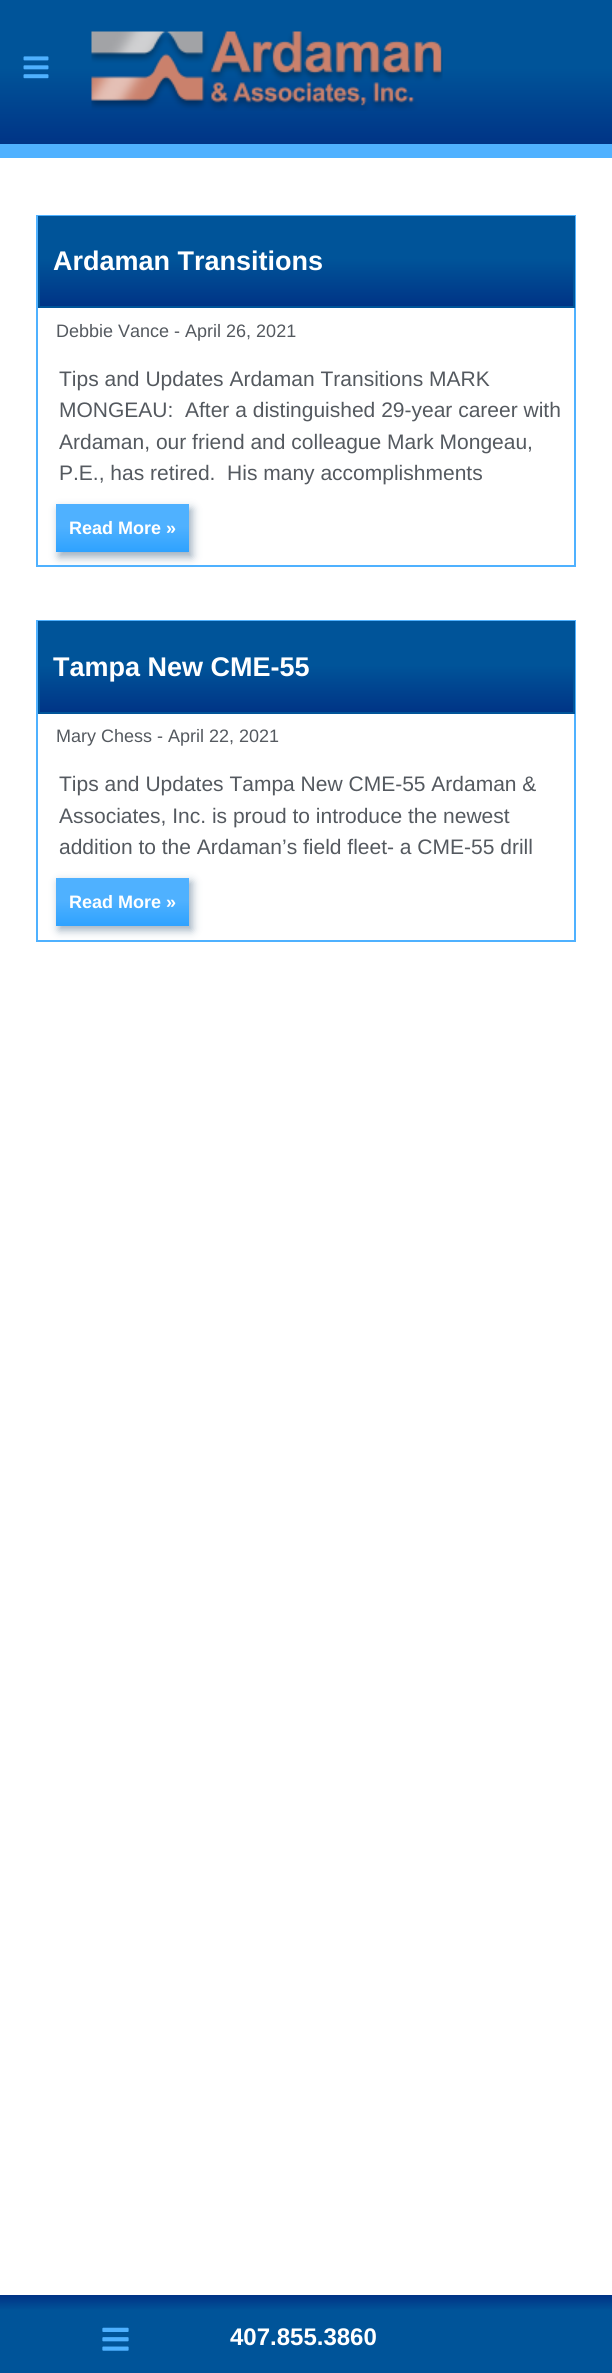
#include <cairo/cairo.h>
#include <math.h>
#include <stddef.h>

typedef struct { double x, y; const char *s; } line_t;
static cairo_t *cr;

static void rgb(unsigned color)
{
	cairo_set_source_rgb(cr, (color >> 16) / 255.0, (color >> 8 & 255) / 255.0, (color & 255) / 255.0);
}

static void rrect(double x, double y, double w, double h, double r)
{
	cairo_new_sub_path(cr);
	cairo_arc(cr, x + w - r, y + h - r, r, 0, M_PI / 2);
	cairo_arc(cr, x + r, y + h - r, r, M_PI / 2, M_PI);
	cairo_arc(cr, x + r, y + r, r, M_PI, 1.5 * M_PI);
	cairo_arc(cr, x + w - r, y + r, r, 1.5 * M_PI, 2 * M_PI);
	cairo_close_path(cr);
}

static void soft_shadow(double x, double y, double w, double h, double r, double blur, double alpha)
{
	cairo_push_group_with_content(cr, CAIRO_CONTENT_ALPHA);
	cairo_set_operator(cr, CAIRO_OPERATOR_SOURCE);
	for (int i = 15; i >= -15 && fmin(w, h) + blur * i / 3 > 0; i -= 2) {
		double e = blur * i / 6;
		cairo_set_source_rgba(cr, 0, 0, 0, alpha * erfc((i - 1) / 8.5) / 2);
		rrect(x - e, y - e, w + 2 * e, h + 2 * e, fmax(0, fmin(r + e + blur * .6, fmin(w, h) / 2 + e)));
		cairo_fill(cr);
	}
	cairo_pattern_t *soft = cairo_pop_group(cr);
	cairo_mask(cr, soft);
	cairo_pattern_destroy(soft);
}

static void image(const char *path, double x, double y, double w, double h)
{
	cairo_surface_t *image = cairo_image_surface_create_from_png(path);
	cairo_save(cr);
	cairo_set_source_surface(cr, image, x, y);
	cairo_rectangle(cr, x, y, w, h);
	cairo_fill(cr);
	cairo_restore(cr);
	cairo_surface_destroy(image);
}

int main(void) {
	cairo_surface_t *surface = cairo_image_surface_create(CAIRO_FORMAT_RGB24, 612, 2373);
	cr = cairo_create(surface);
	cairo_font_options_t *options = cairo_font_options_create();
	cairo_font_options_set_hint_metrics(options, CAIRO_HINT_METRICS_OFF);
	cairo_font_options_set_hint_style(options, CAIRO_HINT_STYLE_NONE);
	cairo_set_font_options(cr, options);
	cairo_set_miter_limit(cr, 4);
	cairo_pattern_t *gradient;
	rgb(0xffffff);
	cairo_paint(cr);
	gradient = cairo_pattern_create_linear(306, 0, 306, 144);
	cairo_pattern_add_color_stop_rgba(gradient, 0.47, 0, 0.329, 0.6, 1);
	cairo_pattern_add_color_stop_rgba(gradient, 1, 0, 0.204, 0.525, 1);
	cairo_set_source(cr, gradient);
	cairo_pattern_destroy(gradient);
	cairo_rectangle(cr, 0, 0, 612, 144);
	cairo_fill(cr);
	rgb(0x4fb1ff);
	cairo_rectangle(cr, 0, 144, 612, 14);
	cairo_fill(cr);
	image("img/1.png", 23, 56, 26, 23);
	image("img/2.png", 91, 31, 352, 80);
	cairo_rectangle(cr, 37, 216, 538, 350);
	cairo_stroke(cr);
	gradient = cairo_pattern_create_linear(306, 217, 306, 306);
	cairo_pattern_add_color_stop_rgba(gradient, 0.47, 0, 0.329, 0.6, 1);
	cairo_pattern_add_color_stop_rgba(gradient, 1, 0, 0.204, 0.525, 1);
	cairo_set_source(cr, gradient);
	cairo_pattern_destroy(gradient);
	cairo_rectangle(cr, 40, 218, 533, 88);
	cairo_fill(cr);
	cairo_rectangle(cr, 39, 217, 535, 90);
	rgb(0x005499);
	cairo_stroke(cr);
	rgb(0x9badbd);
	soft_shadow(59, 509, 133, 48, 0, 4.5, 1);
	gradient = cairo_pattern_create_linear(122, 504, 122, 552);
	cairo_pattern_add_color_stop_rgba(gradient, 0.47, 0.31, 0.694, 1, 1);
	cairo_pattern_add_color_stop_rgba(gradient, 1, 0.18, 0.635, 1, 1);
	cairo_set_source(cr, gradient);
	cairo_pattern_destroy(gradient);
	cairo_rectangle(cr, 56, 504, 133, 48);
	cairo_fill(cr);
	cairo_rectangle(cr, 37, 621, 538, 320);
	rgb(0x4fb1ff);
	cairo_stroke(cr);
	gradient = cairo_pattern_create_linear(306, 623, 306, 713);
	cairo_pattern_add_color_stop_rgba(gradient, 0.47, 0, 0.329, 0.6, 1);
	cairo_pattern_add_color_stop_rgba(gradient, 1, 0, 0.204, 0.525, 1);
	cairo_set_source(cr, gradient);
	cairo_pattern_destroy(gradient);
	cairo_rectangle(cr, 40, 623, 533, 89);
	cairo_fill(cr);
	cairo_rectangle(cr, 39, 622, 535, 91);
	rgb(0x005499);
	cairo_stroke(cr);
	rgb(0x9badbd);
	soft_shadow(59, 882, 133, 48, 0, 4.5, 1);
	gradient = cairo_pattern_create_linear(122, 878, 122, 926);
	cairo_pattern_add_color_stop_rgba(gradient, 0.47, 0.31, 0.694, 1, 1);
	cairo_pattern_add_color_stop_rgba(gradient, 1, 0.18, 0.635, 1, 1);
	cairo_set_source(cr, gradient);
	cairo_pattern_destroy(gradient);
	cairo_rectangle(cr, 56, 878, 133, 48);
	cairo_fill(cr);
	gradient = cairo_pattern_create_linear(306, 2295, 306, 2373);
	cairo_pattern_add_color_stop_rgba(gradient, 0.01, 0, 0.204, 0.525, 1);
	cairo_pattern_add_color_stop_rgba(gradient, 0.2, 0, 0.329, 0.6, 1);
	cairo_set_source(cr, gradient);
	cairo_pattern_destroy(gradient);
	cairo_rectangle(cr, 0, 2295, 612, 78);
	cairo_fill(cr);
	image("img/3.png", 102, 2327, 27, 24);
	cairo_select_font_face(cr, "Liberation Sans", CAIRO_FONT_SLANT_NORMAL, CAIRO_FONT_WEIGHT_BOLD);
	cairo_set_font_size(cr, 27);
	rgb(0xffffff);
	cairo_move_to(cr, 53, 270);
	cairo_show_text(cr, "Ardaman Transitions");
	cairo_select_font_face(cr, "Liberation Sans", CAIRO_FONT_SLANT_NORMAL, CAIRO_FONT_WEIGHT_NORMAL);
	cairo_set_font_size(cr, 18);
	rgb(0x54595f);
	cairo_move_to(cr, 56, 337);
	cairo_show_text(cr, "Debbie Vance - April 26, 2021");
	cairo_set_font_size(cr, 21);
	{
		static const line_t items[] = {
			{59, 386, "Tips and Updates Ardaman Transitions MARK"},
			{59, 417, "MONGEAU:  After a distinguished 29-year career with"},
			{59, 449, "Ardaman, our friend and colleague Mark Mongeau,"},
			{59, 480, "P.E., has retired.  His many accomplishments"},
		};
		for (size_t i = 0; i < sizeof items / sizeof *items; i++) {
			cairo_move_to(cr, items[i].x, items[i].y);
			cairo_show_text(cr, items[i].s);
		}
	}
	cairo_select_font_face(cr, "Liberation Sans", CAIRO_FONT_SLANT_NORMAL, CAIRO_FONT_WEIGHT_BOLD);
	cairo_set_font_size(cr, 18);
	rgb(0xffffff);
	cairo_move_to(cr, 69, 534);
	cairo_show_text(cr, "Read More »");
	cairo_set_font_size(cr, 27);
	cairo_move_to(cr, 53, 676);
	cairo_show_text(cr, "Tampa New CME-55");
	cairo_select_font_face(cr, "Liberation Sans", CAIRO_FONT_SLANT_NORMAL, CAIRO_FONT_WEIGHT_NORMAL);
	cairo_set_font_size(cr, 18);
	rgb(0x54595f);
	cairo_move_to(cr, 56, 742);
	cairo_show_text(cr, "Mary Chess - April 22, 2021");
	cairo_set_font_size(cr, 21);
	{
		static const line_t items[] = {
			{59, 791, "Tips and Updates Tampa New CME-55 Ardaman &"},
			{59, 823, "Associates, Inc. is proud to introduce the newest"},
			{59, 854, "addition to the Ardaman’s field fleet- a CME-55 drill"},
		};
		for (size_t i = 0; i < sizeof items / sizeof *items; i++) {
			cairo_move_to(cr, items[i].x, items[i].y);
			cairo_show_text(cr, items[i].s);
		}
	}
	cairo_select_font_face(cr, "Liberation Sans", CAIRO_FONT_SLANT_NORMAL, CAIRO_FONT_WEIGHT_BOLD);
	cairo_set_font_size(cr, 18);
	rgb(0xffffff);
	cairo_move_to(cr, 69, 908);
	cairo_show_text(cr, "Read More »");
	cairo_set_font_size(cr, 24);
	cairo_move_to(cr, 230, 2345);
	cairo_show_text(cr, "407.855.3860");
	cairo_surface_write_to_png(surface, "page.png");
	cairo_font_options_destroy(options);
	cairo_destroy(cr);
	cairo_surface_destroy(surface);
	return 0;
}
